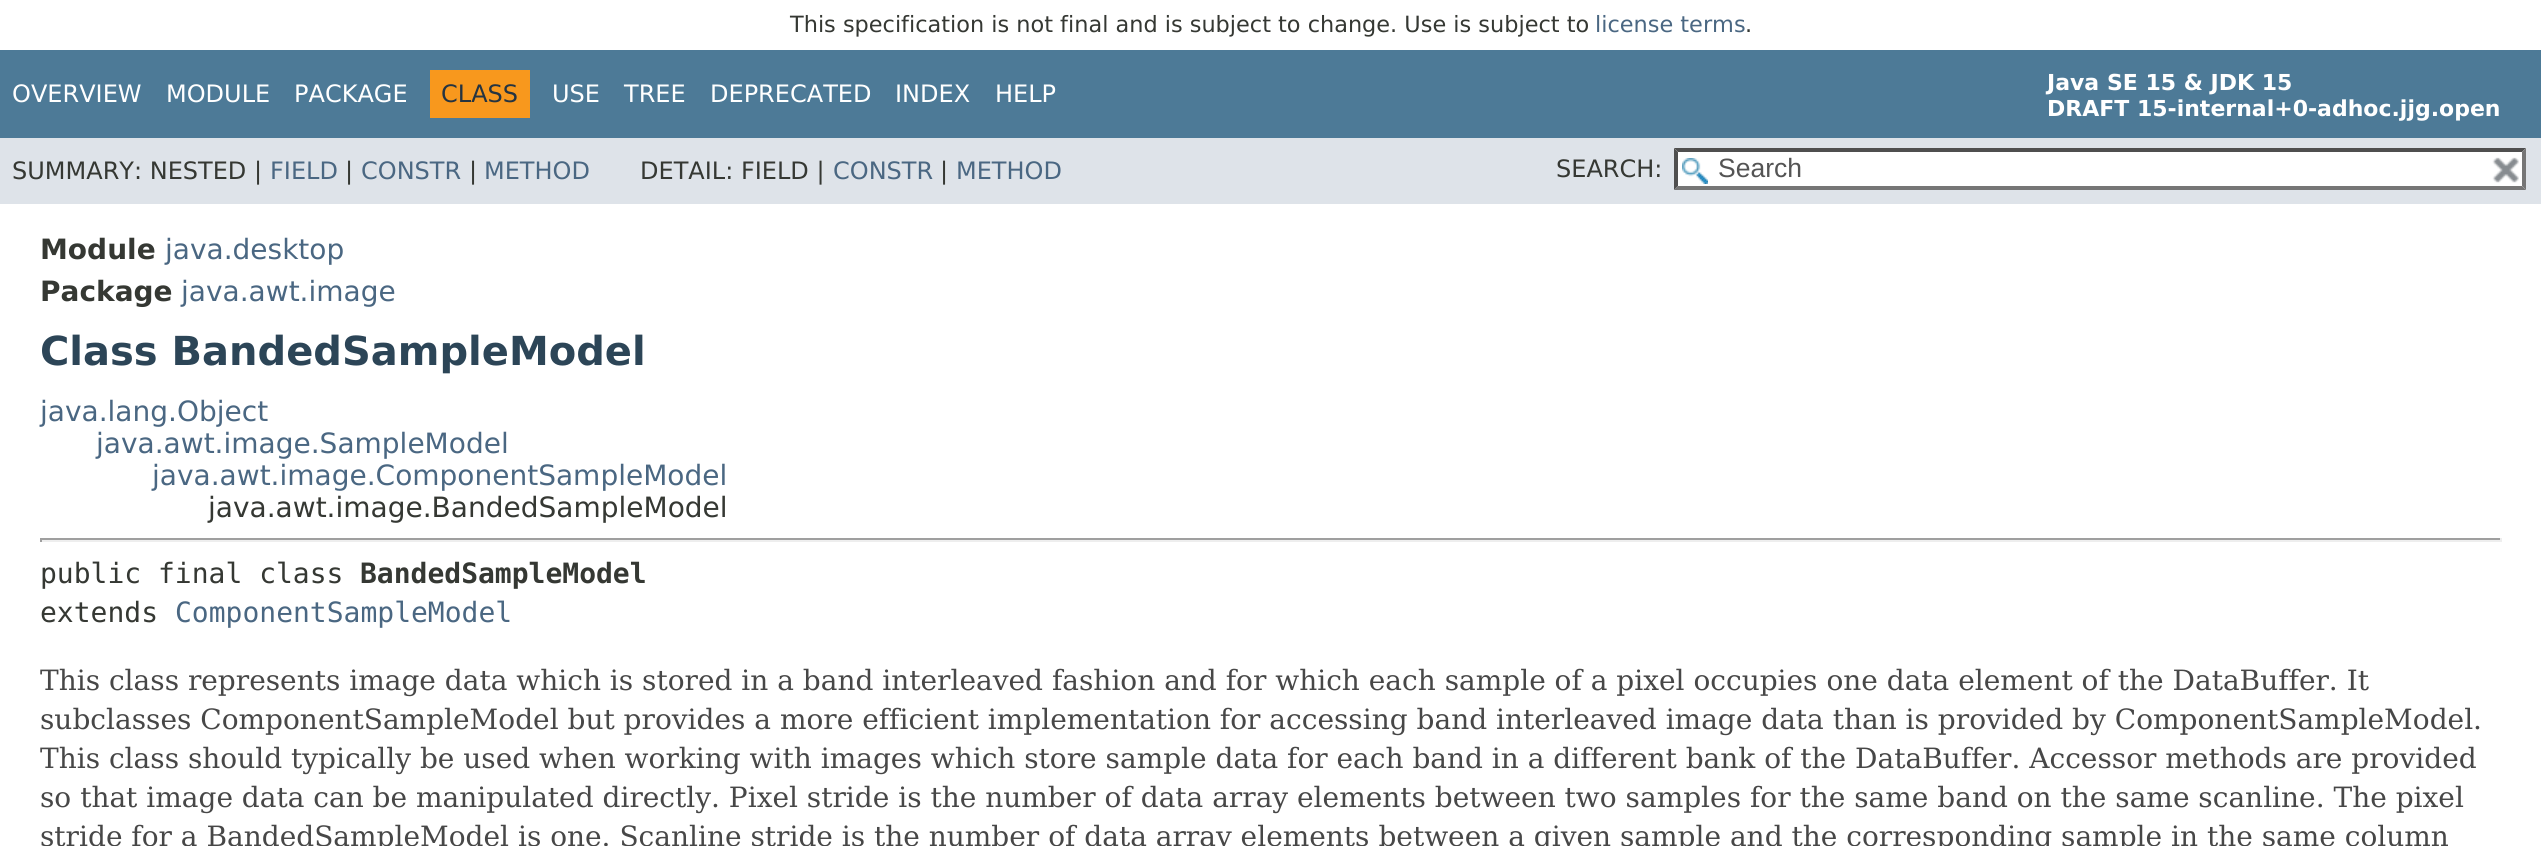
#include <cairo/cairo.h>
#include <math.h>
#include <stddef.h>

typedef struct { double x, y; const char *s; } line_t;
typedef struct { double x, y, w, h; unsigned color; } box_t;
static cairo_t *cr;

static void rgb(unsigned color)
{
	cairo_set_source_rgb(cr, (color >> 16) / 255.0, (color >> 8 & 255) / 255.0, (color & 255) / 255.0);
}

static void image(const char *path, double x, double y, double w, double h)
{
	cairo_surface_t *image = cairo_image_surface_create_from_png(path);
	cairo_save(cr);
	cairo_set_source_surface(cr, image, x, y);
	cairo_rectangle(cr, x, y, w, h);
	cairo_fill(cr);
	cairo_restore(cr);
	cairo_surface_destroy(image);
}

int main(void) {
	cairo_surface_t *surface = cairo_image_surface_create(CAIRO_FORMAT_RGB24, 2541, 846);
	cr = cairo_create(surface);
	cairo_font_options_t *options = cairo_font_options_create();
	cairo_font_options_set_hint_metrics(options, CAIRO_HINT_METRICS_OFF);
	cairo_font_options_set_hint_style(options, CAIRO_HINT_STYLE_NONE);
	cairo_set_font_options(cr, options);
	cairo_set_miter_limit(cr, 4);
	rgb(0xffffff);
	cairo_paint(cr);
	{
		static const box_t items[] = {
			{0, 50, 2541, 88, 0x4d7a97},
			{430, 70, 100, 48, 0xf8981d},
			{0, 138, 2541, 66, 0xdee3e9},
			{1674, 148, 852, 42, 0xffffff},
		};
		for (size_t i = 0; i < sizeof items / sizeof *items; i++) {
			rgb(items[i].color);
			cairo_rectangle(cr, items[i].x, items[i].y, items[i].w, items[i].h);
			cairo_fill(cr);
		}
	}
	image("img/1.png", 1682, 158, 26, 26);
	rgb(0x4f4f4f);
	cairo_new_path(cr);
	cairo_move_to(cr, 1674, 148);
	cairo_line_to(cr, 2526, 148);
	cairo_line_to(cr, 2522, 152);
	cairo_line_to(cr, 1678, 152);
	cairo_close_path(cr);
	cairo_fill(cr);
	rgb(0x767676);
	cairo_new_path(cr);
	cairo_move_to(cr, 2526, 148);
	cairo_line_to(cr, 2526, 190);
	cairo_line_to(cr, 2522, 186);
	cairo_line_to(cr, 2522, 152);
	cairo_close_path(cr);
	cairo_fill(cr);
	cairo_new_path(cr);
	cairo_move_to(cr, 2526, 190);
	cairo_line_to(cr, 1674, 190);
	cairo_line_to(cr, 1678, 186);
	cairo_line_to(cr, 2522, 186);
	cairo_close_path(cr);
	cairo_fill(cr);
	rgb(0x4f4f4f);
	cairo_new_path(cr);
	cairo_move_to(cr, 1674, 190);
	cairo_line_to(cr, 1674, 148);
	cairo_line_to(cr, 1678, 152);
	cairo_line_to(cr, 1678, 186);
	cairo_close_path(cr);
	cairo_fill(cr);
	image("img/2.png", 2492, 157, 27, 26);
	{
		static const box_t items[] = {
			{40, 538, 2462, 2, 0x9f9f9f},
			{2500, 538, 2, 4, 0xeeeeee},
			{40, 540, 2462, 2, 0xeeeeee},
			{40, 538, 2, 4, 0x9f9f9f},
		};
		for (size_t i = 0; i < sizeof items / sizeof *items; i++) {
			rgb(items[i].color);
			cairo_rectangle(cr, items[i].x, items[i].y, items[i].w, items[i].h);
			cairo_fill(cr);
		}
	}
	cairo_select_font_face(cr, "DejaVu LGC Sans", CAIRO_FONT_SLANT_NORMAL, CAIRO_FONT_WEIGHT_NORMAL);
	cairo_set_font_size(cr, 22.4);
	rgb(0x353833);
	cairo_move_to(cr, 790, 32);
	cairo_show_text(cr, "This specification is not final and is subject to change. Use is subject to");
	rgb(0x4a6782);
	cairo_move_to(cr, 1595, 32);
	cairo_show_text(cr, "license terms");
	rgb(0x353833);
	cairo_move_to(cr, 1745, 32);
	cairo_show_text(cr, ".");
	cairo_set_font_size(cr, 24);
	rgb(0xffffff);
	{
		static const line_t items[] = {
			{12, 102, "OVERVIEW"},
			{166, 102, "MODULE"},
			{294, 102, "PACKAGE"},
		};
		for (size_t i = 0; i < sizeof items / sizeof *items; i++) {
			cairo_move_to(cr, items[i].x, items[i].y);
			cairo_show_text(cr, items[i].s);
		}
	}
	rgb(0x253441);
	cairo_move_to(cr, 441, 102);
	cairo_show_text(cr, "CLASS");
	rgb(0xffffff);
	{
		static const line_t items[] = {
			{552, 102, "USE"},
			{624, 102, "TREE"},
			{710, 102, "DEPRECATED"},
			{895, 102, "INDEX"},
			{995, 102, "HELP"},
		};
		for (size_t i = 0; i < sizeof items / sizeof *items; i++) {
			cairo_move_to(cr, items[i].x, items[i].y);
			cairo_show_text(cr, items[i].s);
		}
	}
	cairo_select_font_face(cr, "DejaVu LGC Sans", CAIRO_FONT_SLANT_NORMAL, CAIRO_FONT_WEIGHT_BOLD);
	cairo_set_font_size(cr, 22);
	cairo_move_to(cr, 2047, 90);
	cairo_show_text(cr, "Java SE 15 & JDK 15");
	cairo_move_to(cr, 2047, 116);
	cairo_show_text(cr, "DRAFT 15-internal+0-adhoc.jjg.open");
	cairo_select_font_face(cr, "DejaVu LGC Sans", CAIRO_FONT_SLANT_NORMAL, CAIRO_FONT_WEIGHT_NORMAL);
	cairo_set_font_size(cr, 24);
	rgb(0x353833);
	cairo_move_to(cr, 12, 179);
	cairo_show_text(cr, "SUMMARY: NESTED |");
	rgb(0x4a6782);
	cairo_move_to(cr, 270, 179);
	cairo_show_text(cr, "FIELD");
	rgb(0x353833);
	cairo_move_to(cr, 345, 179);
	cairo_show_text(cr, "|");
	rgb(0x4a6782);
	cairo_move_to(cr, 361, 179);
	cairo_show_text(cr, "CONSTR");
	rgb(0x353833);
	cairo_move_to(cr, 469, 179);
	cairo_show_text(cr, "|");
	rgb(0x4a6782);
	cairo_move_to(cr, 484, 179);
	cairo_show_text(cr, "METHOD");
	rgb(0x353833);
	cairo_move_to(cr, 640, 179);
	cairo_show_text(cr, "DETAIL: FIELD |");
	rgb(0x4a6782);
	cairo_move_to(cr, 833, 179);
	cairo_show_text(cr, "CONSTR");
	rgb(0x353833);
	cairo_move_to(cr, 940, 179);
	cairo_show_text(cr, "|");
	rgb(0x4a6782);
	cairo_move_to(cr, 956, 179);
	cairo_show_text(cr, "METHOD");
	rgb(0x353833);
	cairo_move_to(cr, 1556, 177);
	cairo_show_text(cr, "SEARCH:");
	cairo_select_font_face(cr, "Liberation Sans", CAIRO_FONT_SLANT_NORMAL, CAIRO_FONT_WEIGHT_NORMAL);
	cairo_set_font_size(cr, 26.5);
	rgb(0x545454);
	cairo_move_to(cr, 1718, 177);
	cairo_show_text(cr, "Search");
	cairo_select_font_face(cr, "DejaVu LGC Sans", CAIRO_FONT_SLANT_NORMAL, CAIRO_FONT_WEIGHT_BOLD);
	cairo_set_font_size(cr, 28);
	rgb(0x353833);
	cairo_move_to(cr, 40, 259);
	cairo_show_text(cr, "Module");
	cairo_select_font_face(cr, "DejaVu LGC Sans", CAIRO_FONT_SLANT_NORMAL, CAIRO_FONT_WEIGHT_NORMAL);
	rgb(0x4a6782);
	cairo_move_to(cr, 165, 259);
	cairo_show_text(cr, "java.desktop");
	cairo_select_font_face(cr, "DejaVu LGC Sans", CAIRO_FONT_SLANT_NORMAL, CAIRO_FONT_WEIGHT_BOLD);
	rgb(0x353833);
	cairo_move_to(cr, 40, 301);
	cairo_show_text(cr, "Package");
	cairo_select_font_face(cr, "DejaVu LGC Sans", CAIRO_FONT_SLANT_NORMAL, CAIRO_FONT_WEIGHT_NORMAL);
	rgb(0x4a6782);
	cairo_move_to(cr, 181, 301);
	cairo_show_text(cr, "java.awt.image");
	cairo_select_font_face(cr, "DejaVu LGC Sans", CAIRO_FONT_SLANT_NORMAL, CAIRO_FONT_WEIGHT_BOLD);
	cairo_set_font_size(cr, 40);
	rgb(0x2c4557);
	cairo_move_to(cr, 40, 365);
	cairo_show_text(cr, "Class BandedSampleModel");
	cairo_select_font_face(cr, "DejaVu LGC Sans", CAIRO_FONT_SLANT_NORMAL, CAIRO_FONT_WEIGHT_NORMAL);
	cairo_set_font_size(cr, 28);
	rgb(0x4a6782);
	{
		static const line_t items[] = {
			{40, 421, "java.lang.Object"},
			{96, 453, "java.awt.image.SampleModel"},
			{152, 485, "java.awt.image.ComponentSampleModel"},
		};
		for (size_t i = 0; i < sizeof items / sizeof *items; i++) {
			cairo_move_to(cr, items[i].x, items[i].y);
			cairo_show_text(cr, items[i].s);
		}
	}
	rgb(0x353833);
	cairo_move_to(cr, 208, 517);
	cairo_show_text(cr, "java.awt.image.BandedSampleModel");
	cairo_select_font_face(cr, "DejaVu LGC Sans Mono", CAIRO_FONT_SLANT_NORMAL, CAIRO_FONT_WEIGHT_NORMAL);
	cairo_move_to(cr, 40, 583);
	cairo_show_text(cr, "public final class");
	cairo_select_font_face(cr, "DejaVu LGC Sans Mono", CAIRO_FONT_SLANT_NORMAL, CAIRO_FONT_WEIGHT_BOLD);
	cairo_move_to(cr, 360, 583);
	cairo_show_text(cr, "BandedSampleModel");
	cairo_select_font_face(cr, "DejaVu LGC Sans Mono", CAIRO_FONT_SLANT_NORMAL, CAIRO_FONT_WEIGHT_NORMAL);
	cairo_move_to(cr, 40, 622);
	cairo_show_text(cr, "extends");
	rgb(0x4a6782);
	cairo_move_to(cr, 175, 622);
	cairo_show_text(cr, "ComponentSampleModel");
	cairo_select_font_face(cr, "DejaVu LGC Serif", CAIRO_FONT_SLANT_NORMAL, CAIRO_FONT_WEIGHT_NORMAL);
	rgb(0x474747);
	{
		static const line_t items[] = {
			{40, 690, "This class represents image data which is stored in a band interleaved fashion and for which each sample of a pixel occupies one data element of the DataBuffer. It"},
			{40, 729, "subclasses ComponentSampleModel but provides a more efficient implementation for accessing band interleaved image data than is provided by ComponentSampleModel."},
			{40, 768, "This class should typically be used when working with images which store sample data for each band in a different bank of the DataBuffer. Accessor methods are provided"},
			{40, 807, "so that image data can be manipulated directly. Pixel stride is the number of data array elements between two samples for the same band on the same scanline. The pixel"},
			{40, 846, "stride for a BandedSampleModel is one. Scanline stride is the number of data array elements between a given sample and the corresponding sample in the same column"},
		};
		for (size_t i = 0; i < sizeof items / sizeof *items; i++) {
			cairo_move_to(cr, items[i].x, items[i].y);
			cairo_show_text(cr, items[i].s);
		}
	}
	cairo_surface_write_to_png(surface, "page.png");
	cairo_font_options_destroy(options);
	cairo_destroy(cr);
	cairo_surface_destroy(surface);
	return 0;
}
